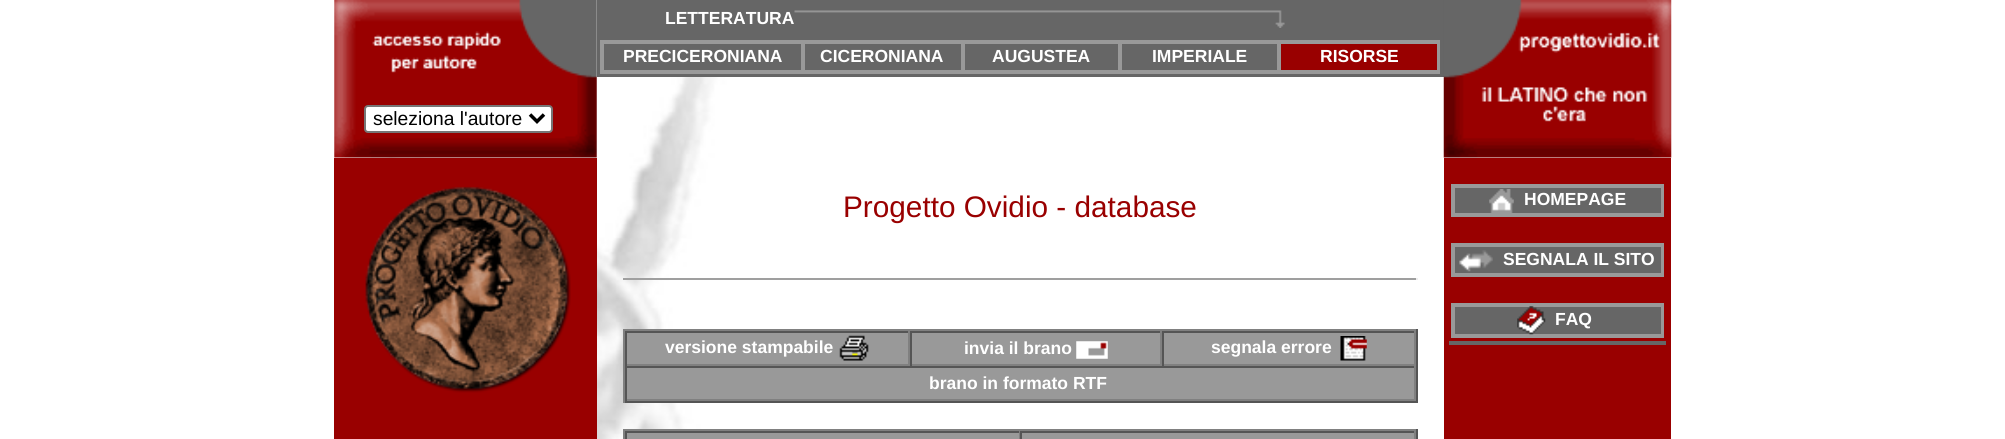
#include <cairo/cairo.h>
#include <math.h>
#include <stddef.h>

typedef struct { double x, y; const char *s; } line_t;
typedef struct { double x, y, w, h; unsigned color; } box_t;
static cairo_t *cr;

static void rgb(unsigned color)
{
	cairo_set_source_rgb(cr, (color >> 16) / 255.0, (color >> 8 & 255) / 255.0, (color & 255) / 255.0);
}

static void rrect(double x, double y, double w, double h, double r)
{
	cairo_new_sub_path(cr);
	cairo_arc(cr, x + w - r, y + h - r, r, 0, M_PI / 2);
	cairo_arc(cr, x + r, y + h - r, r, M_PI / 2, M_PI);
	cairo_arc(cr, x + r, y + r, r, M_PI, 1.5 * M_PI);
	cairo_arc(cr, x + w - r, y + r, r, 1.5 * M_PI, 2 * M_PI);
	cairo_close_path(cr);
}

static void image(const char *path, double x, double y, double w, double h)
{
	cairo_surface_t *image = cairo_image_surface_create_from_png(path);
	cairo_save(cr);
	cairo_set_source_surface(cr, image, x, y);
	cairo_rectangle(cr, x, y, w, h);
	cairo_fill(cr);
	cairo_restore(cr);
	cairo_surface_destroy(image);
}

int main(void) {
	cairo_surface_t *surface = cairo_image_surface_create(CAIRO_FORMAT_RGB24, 2005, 439);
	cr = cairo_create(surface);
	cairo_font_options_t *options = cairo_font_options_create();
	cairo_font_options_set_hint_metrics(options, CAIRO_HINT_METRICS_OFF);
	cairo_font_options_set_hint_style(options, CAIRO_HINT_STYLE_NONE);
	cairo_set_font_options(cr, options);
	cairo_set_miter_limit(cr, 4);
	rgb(0xffffff);
	cairo_paint(cr);
	image("img/1.png", 346, 0, 386, 439);
	rgb(0x666666);
	cairo_rectangle(cr, 597, 0, 847, 77);
	cairo_fill(cr);
	image("img/2.png", 794, 10, 491, 18);
	image("img/3.png", 1443, 0, 229, 158);
	image("img/4.png", 334, 0, 263, 158);
	rgb(0xffffff);
	rrect(365, 106, 187, 26, 3);
	cairo_fill_preserve(cr);
	rgb(0x767676);
	cairo_stroke(cr);
	cairo_new_path(cr);
	cairo_move_to(cr, 530, 114.5);
	cairo_line_to(cr, 537, 121.5);
	cairo_line_to(cr, 544, 114.5);
	rgb(0x000000);
	cairo_set_line_width(cr, 3.5);
	cairo_stroke(cr);
	cairo_rectangle(cr, 601, 41, 838, 32);
	rgb(0x999999);
	cairo_set_line_width(cr, 2);
	cairo_stroke(cr);
	cairo_rectangle(cr, 603, 43, 199, 28);
	cairo_stroke(cr);
	cairo_rectangle(cr, 804, 43, 158, 28);
	cairo_stroke(cr);
	cairo_rectangle(cr, 964, 43, 155, 28);
	cairo_stroke(cr);
	cairo_rectangle(cr, 1121, 43, 157, 28);
	cairo_stroke(cr);
	rgb(0x990000);
	cairo_rectangle(cr, 1280, 43, 158, 28);
	cairo_fill_preserve(cr);
	rgb(0x999999);
	cairo_stroke(cr);
	rgb(0x990000);
	cairo_rectangle(cr, 334, 158, 263, 281);
	cairo_fill(cr);
	cairo_rectangle(cr, 1444, 158, 227, 281);
	cairo_fill(cr);
	image("img/5.png", 365, 186, 206, 207);
	{
		static const box_t items[] = {
			{623, 278, 795, 2, 0x9f9f9f},
			{1416, 278, 2, 2, 0xeeeeee},
			{627, 333, 787, 66, 0x999999},
			{623, 329, 795, 2, 0x808080},
			{1416, 329, 2, 74, 0x555555},
			{623, 401, 795, 2, 0x555555},
			{623, 329, 2, 74, 0x808080},
			{625, 331, 791, 2, 0x555555},
			{908, 331, 2, 35, 0x808080},
			{625, 364, 285, 2, 0x808080},
			{625, 331, 2, 35, 0x555555},
		};
		for (size_t i = 0; i < sizeof items / sizeof *items; i++) {
			rgb(items[i].color);
			cairo_rectangle(cr, items[i].x, items[i].y, items[i].w, items[i].h);
			cairo_fill(cr);
		}
	}
	image("img/6.png", 839, 335, 30, 26);
	{
		static const box_t items[] = {
			{1160, 331, 2, 35, 0x808080},
			{910, 364, 252, 2, 0x808080},
			{910, 331, 2, 35, 0x555555},
		};
		for (size_t i = 0; i < sizeof items / sizeof *items; i++) {
			rgb(items[i].color);
			cairo_rectangle(cr, items[i].x, items[i].y, items[i].w, items[i].h);
			cairo_fill(cr);
		}
	}
	image("img/7.png", 1076, 341, 32, 18);
	{
		static const box_t items[] = {
			{1414, 331, 2, 35, 0x808080},
			{1162, 364, 254, 2, 0x808080},
			{1162, 331, 2, 35, 0x555555},
		};
		for (size_t i = 0; i < sizeof items / sizeof *items; i++) {
			rgb(items[i].color);
			cairo_rectangle(cr, items[i].x, items[i].y, items[i].w, items[i].h);
			cairo_fill(cr);
		}
	}
	image("img/8.png", 1340, 336, 27, 25);
	{
		static const box_t items[] = {
			{625, 366, 791, 2, 0x555555},
			{1414, 366, 2, 35, 0x808080},
			{625, 399, 791, 2, 0x808080},
			{625, 366, 2, 35, 0x555555},
			{627, 433, 787, 6, 0x999999},
			{623, 429, 795, 2, 0x808080},
			{1416, 429, 2, 10, 0x555555},
			{623, 429, 2, 10, 0x808080},
			{625, 431, 791, 2, 0x555555},
			{1019, 431, 1, 8, 0x808080},
			{625, 431, 2, 8, 0x555555},
			{1414, 431, 2, 8, 0x808080},
			{1020, 431, 2, 8, 0x555555},
		};
		for (size_t i = 0; i < sizeof items / sizeof *items; i++) {
			rgb(items[i].color);
			cairo_rectangle(cr, items[i].x, items[i].y, items[i].w, items[i].h);
			cairo_fill(cr);
		}
	}
	cairo_rectangle(cr, 1452, 185, 211, 31);
	rgb(0x999999);
	cairo_stroke(cr);
	rgb(0x666666);
	cairo_rectangle(cr, 1454, 187, 208, 27);
	cairo_fill_preserve(cr);
	rgb(0x999999);
	cairo_stroke(cr);
	image("img/9.png", 1489, 189, 25, 24);
	cairo_rectangle(cr, 1452, 244, 211, 32);
	cairo_stroke(cr);
	rgb(0x666666);
	cairo_rectangle(cr, 1454, 246, 208, 28);
	cairo_fill_preserve(cr);
	rgb(0x999999);
	cairo_stroke(cr);
	image("img/10.png", 1459, 250, 34, 22);
	cairo_rectangle(cr, 1452, 304, 211, 33);
	cairo_stroke(cr);
	rgb(0x666666);
	cairo_rectangle(cr, 1454, 306, 208, 29);
	cairo_fill_preserve(cr);
	rgb(0x999999);
	cairo_stroke(cr);
	image("img/11.png", 1517, 306, 29, 29);
	rgb(0x666666);
	cairo_rectangle(cr, 1449, 341, 217, 4);
	cairo_fill(cr);
	cairo_select_font_face(cr, "Liberation Sans", CAIRO_FONT_SLANT_NORMAL, CAIRO_FONT_WEIGHT_BOLD);
	cairo_set_font_size(cr, 17.5);
	rgb(0xffffff);
	cairo_move_to(cr, 665, 24);
	cairo_show_text(cr, "LETTERATURA");
	cairo_select_font_face(cr, "Liberation Sans", CAIRO_FONT_SLANT_NORMAL, CAIRO_FONT_WEIGHT_NORMAL);
	cairo_set_font_size(cr, 19.25);
	rgb(0x000000);
	cairo_move_to(cr, 373, 125);
	cairo_show_text(cr, "seleziona l'autore");
	cairo_select_font_face(cr, "Liberation Sans", CAIRO_FONT_SLANT_NORMAL, CAIRO_FONT_WEIGHT_BOLD);
	cairo_set_font_size(cr, 17.5);
	rgb(0xffffff);
	{
		static const line_t items[] = {
			{623, 62, "PRECICERONIANA"},
			{820, 62, "CICERONIANA"},
			{992, 62, "AUGUSTEA"},
			{1152, 62, "IMPERIALE"},
			{1320, 62, "RISORSE"},
		};
		for (size_t i = 0; i < sizeof items / sizeof *items; i++) {
			cairo_move_to(cr, items[i].x, items[i].y);
			cairo_show_text(cr, items[i].s);
		}
	}
	cairo_select_font_face(cr, "Liberation Sans", CAIRO_FONT_SLANT_NORMAL, CAIRO_FONT_WEIGHT_NORMAL);
	cairo_set_font_size(cr, 29.75);
	rgb(0x990000);
	cairo_move_to(cr, 843, 217);
	cairo_show_text(cr, "Progetto Ovidio - database");
	cairo_select_font_face(cr, "Liberation Sans", CAIRO_FONT_SLANT_NORMAL, CAIRO_FONT_WEIGHT_BOLD);
	cairo_set_font_size(cr, 17.5);
	rgb(0xffffff);
	{
		static const line_t items[] = {
			{665, 353, "versione stampabile"},
			{964, 354, "invia il brano"},
			{1211, 353, "segnala errore"},
			{929, 389, "brano in formato RTF"},
			{1524, 205, "HOMEPAGE"},
			{1503, 265, "SEGNALA IL SITO"},
			{1555, 325, "FAQ"},
		};
		for (size_t i = 0; i < sizeof items / sizeof *items; i++) {
			cairo_move_to(cr, items[i].x, items[i].y);
			cairo_show_text(cr, items[i].s);
		}
	}
	cairo_surface_write_to_png(surface, "page.png");
	cairo_font_options_destroy(options);
	cairo_destroy(cr);
	cairo_surface_destroy(surface);
	return 0;
}
